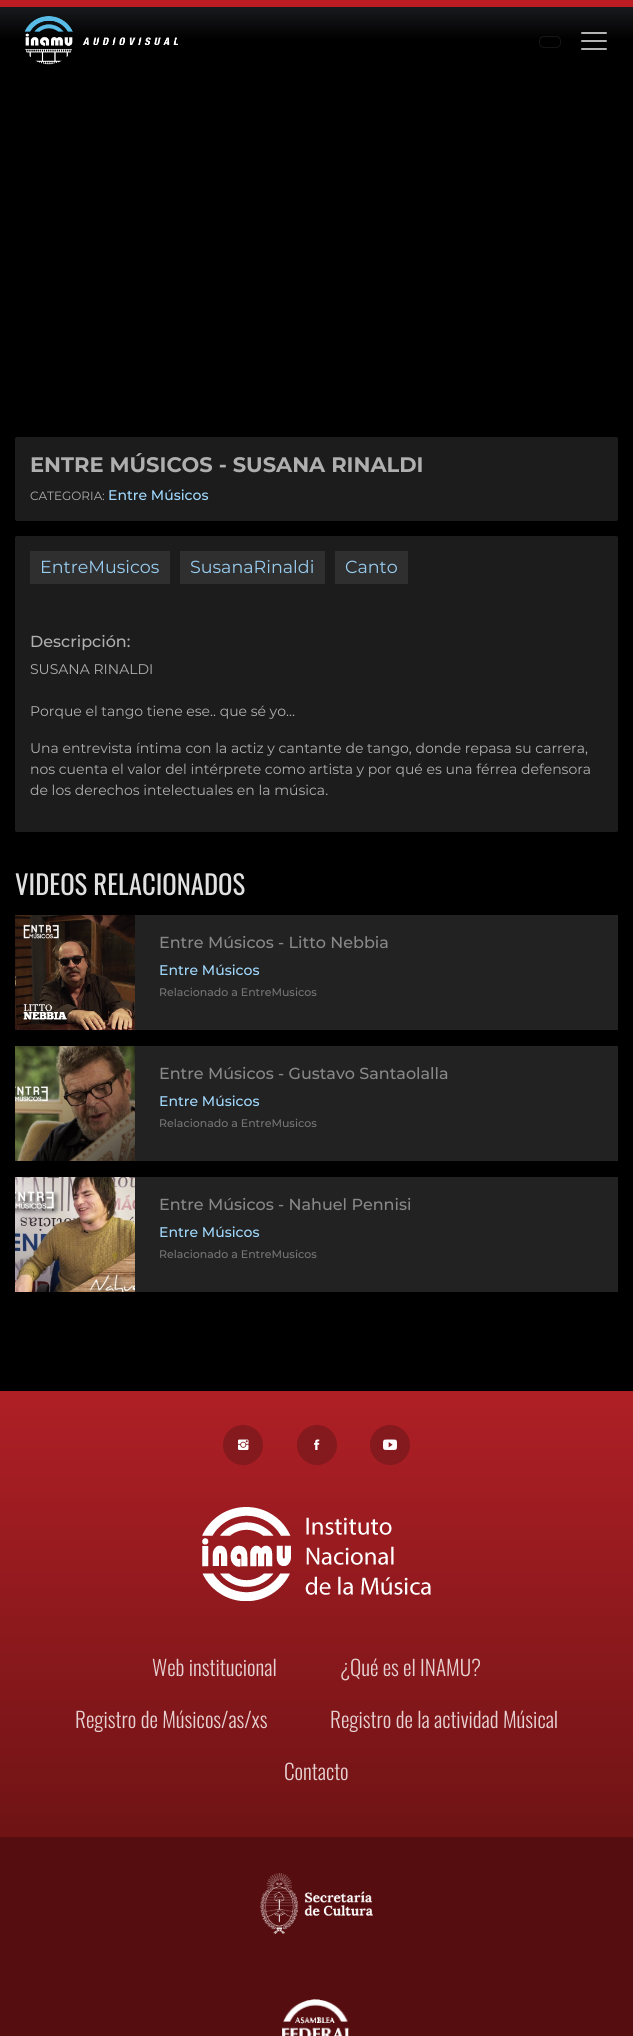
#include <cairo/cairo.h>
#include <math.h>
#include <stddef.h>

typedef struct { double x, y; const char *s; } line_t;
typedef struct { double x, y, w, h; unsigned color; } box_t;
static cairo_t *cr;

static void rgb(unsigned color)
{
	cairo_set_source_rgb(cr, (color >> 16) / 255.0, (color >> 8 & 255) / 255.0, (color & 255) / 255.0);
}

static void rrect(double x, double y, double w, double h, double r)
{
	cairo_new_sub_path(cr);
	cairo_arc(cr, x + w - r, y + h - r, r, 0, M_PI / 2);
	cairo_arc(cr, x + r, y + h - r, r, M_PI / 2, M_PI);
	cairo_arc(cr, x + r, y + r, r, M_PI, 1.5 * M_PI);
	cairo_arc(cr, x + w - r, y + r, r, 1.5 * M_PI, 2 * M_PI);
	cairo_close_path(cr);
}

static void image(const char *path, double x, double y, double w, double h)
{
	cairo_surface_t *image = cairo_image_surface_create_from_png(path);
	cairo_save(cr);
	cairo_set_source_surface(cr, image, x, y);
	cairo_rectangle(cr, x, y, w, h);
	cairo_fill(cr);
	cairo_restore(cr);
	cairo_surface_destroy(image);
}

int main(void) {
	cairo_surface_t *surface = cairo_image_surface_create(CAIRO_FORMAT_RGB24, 633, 2036);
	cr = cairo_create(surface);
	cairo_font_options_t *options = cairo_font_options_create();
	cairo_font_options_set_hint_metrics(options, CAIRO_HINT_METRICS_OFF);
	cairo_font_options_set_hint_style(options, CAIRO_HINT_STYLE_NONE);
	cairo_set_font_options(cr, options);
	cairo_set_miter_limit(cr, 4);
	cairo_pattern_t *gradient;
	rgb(0xffffff);
	cairo_paint(cr);
	gradient = cairo_pattern_create_linear(316, 0, 317, 2036);
	cairo_pattern_add_color_stop_rgba(gradient, 0.7, 0, 0, 0, 1);
	cairo_pattern_add_color_stop_rgba(gradient, 1, 0.133, 0.133, 0.133, 1);
	cairo_set_source(cr, gradient);
	cairo_pattern_destroy(gradient);
	cairo_rectangle(cr, 0, 72, 633, 1319);
	cairo_fill(cr);
	gradient = cairo_pattern_create_linear(317, 72, 317, 7);
	cairo_pattern_add_color_stop_rgba(gradient, 0, 0, 0, 0, 1);
	cairo_pattern_add_color_stop_rgba(gradient, 0.5, 0, 0, 0, 1);
	cairo_pattern_add_color_stop_rgba(gradient, 1, 0.098, 0.102, 0.118, 1);
	cairo_set_source(cr, gradient);
	cairo_pattern_destroy(gradient);
	cairo_rectangle(cr, 0, 7, 633, 65);
	cairo_fill(cr);
	rgb(0xbd1c23);
	cairo_rectangle(cr, 0, 0, 633, 7);
	cairo_fill(cr);
	image("img/1.png", 24, 16, 155, 49);
	rrect(539.5, 36.5, 21, 11, 4.5);
	cairo_set_source_rgba(cr, 0.816, 0.788, 0.788, 0.1);
	cairo_set_line_width(cr, 1);
	cairo_stroke(cr);
	image("img/2.png", 581, 32, 26, 18);
	rgb(0x1c1c1c);
	rrect(15, 437, 603, 84, 2);
	cairo_fill(cr);
	rrect(15, 536, 603, 296, 2);
	cairo_fill(cr);
	{
		static const box_t items[] = {
			{30, 551, 140, 33, 0x2f2f2f},
			{180, 551, 145, 33, 0x2f2f2f},
			{335, 551, 73, 33, 0x2f2f2f},
			{135, 915, 483, 115, 0x222222},
		};
		for (size_t i = 0; i < sizeof items / sizeof *items; i++) {
			rgb(items[i].color);
			cairo_rectangle(cr, items[i].x, items[i].y, items[i].w, items[i].h);
			cairo_fill(cr);
		}
	}
	image("img/3.png", 15, 915, 120, 115);
	cairo_rectangle(cr, 135, 1046, 483, 115);
	cairo_fill(cr);
	image("img/4.png", 15, 1046, 120, 115);
	cairo_rectangle(cr, 135, 1177, 483, 115);
	cairo_fill(cr);
	image("img/5.png", 15, 1177, 120, 115);
	gradient = cairo_pattern_create_linear(317, 1391, 317, 1837);
	cairo_pattern_add_color_stop_rgba(gradient, 0.03, 0.678, 0.122, 0.145, 1);
	cairo_pattern_add_color_stop_rgba(gradient, 1, 0.435, 0.075, 0.082, 1);
	cairo_set_source(cr, gradient);
	cairo_pattern_destroy(gradient);
	cairo_rectangle(cr, 0, 1391, 633, 446);
	cairo_fill(cr);
	rgb(0x84191e);
	cairo_arc(cr, 243, 1445, 20, 0, 2 * M_PI);
	cairo_fill(cr);
	image("img/6.png", 238, 1439, 11, 11);
	cairo_arc(cr, 317, 1445, 20, 0, 2 * M_PI);
	cairo_fill(cr);
	image("img/7.png", 314, 1439, 6, 11);
	cairo_arc(cr, 390, 1445, 20, 0, 2 * M_PI);
	cairo_fill(cr);
	image("img/8.png", 383, 1439, 14, 11);
	image("img/9.png", 202, 1507, 229, 94);
	rgb(0x560d0f);
	cairo_rectangle(cr, 0, 1837, 633, 199);
	cairo_fill(cr);
	image("img/10.png", 260, 1873, 113, 61);
	image("img/11.png", 282, 1999, 68, 37);
	cairo_select_font_face(cr, "Montserrat", CAIRO_FONT_SLANT_NORMAL, CAIRO_FONT_WEIGHT_BOLD);
	cairo_set_font_size(cr, 21);
	rgb(0xafafaf);
	cairo_move_to(cr, 30, 472);
	cairo_show_text(cr, "ENTRE MÚSICOS - SUSANA RINALDI");
	cairo_select_font_face(cr, "Montserrat", CAIRO_FONT_SLANT_NORMAL, CAIRO_FONT_WEIGHT_NORMAL);
	cairo_set_font_size(cr, 12);
	cairo_move_to(cr, 30, 500);
	cairo_show_text(cr, "CATEGORIA:");
	cairo_select_font_face(cr, "Montserrat Medium", CAIRO_FONT_SLANT_NORMAL, CAIRO_FONT_WEIGHT_NORMAL);
	cairo_set_font_size(cr, 14);
	rgb(0xa2daff);
	cairo_move_to(cr, 108, 500);
	cairo_show_text(cr, "Entre Músicos");
	cairo_select_font_face(cr, "Montserrat", CAIRO_FONT_SLANT_NORMAL, CAIRO_FONT_WEIGHT_NORMAL);
	cairo_set_font_size(cr, 17.5);
	rgb(0x98cdf0);
	{
		static const line_t items[] = {
			{40, 573, "EntreMusicos"},
			{190, 573, "SusanaRinaldi"},
			{345, 573, "Canto"},
		};
		for (size_t i = 0; i < sizeof items / sizeof *items; i++) {
			cairo_move_to(cr, items[i].x, items[i].y);
			cairo_show_text(cr, items[i].s);
		}
	}
	cairo_select_font_face(cr, "Montserrat Medium", CAIRO_FONT_SLANT_NORMAL, CAIRO_FONT_WEIGHT_NORMAL);
	cairo_set_font_size(cr, 16);
	rgb(0xafafaf);
	cairo_move_to(cr, 30, 647);
	cairo_show_text(cr, "Descripción:");
	cairo_select_font_face(cr, "Montserrat", CAIRO_FONT_SLANT_NORMAL, CAIRO_FONT_WEIGHT_NORMAL);
	cairo_set_font_size(cr, 14);
	{
		static const line_t items[] = {
			{30, 674, "SUSANA RINALDI"},
			{30, 716, "Porque el tango tiene ese.. que sé yo…"},
			{30, 753, "Una entrevista íntima con la actiz y cantante de tango, donde repasa su carrera,"},
			{30, 774, "nos cuenta el valor del intérprete como artista y por qué es una férrea defensora"},
			{30, 795, "de los derechos intelectuales en la música."},
		};
		for (size_t i = 0; i < sizeof items / sizeof *items; i++) {
			cairo_move_to(cr, items[i].x, items[i].y);
			cairo_show_text(cr, items[i].s);
		}
	}
	cairo_select_font_face(cr, "Oswald", CAIRO_FONT_SLANT_NORMAL, CAIRO_FONT_WEIGHT_NORMAL);
	cairo_set_font_size(cr, 26.75);
	rgb(0xe0e0e0);
	cairo_move_to(cr, 15, 895);
	cairo_show_text(cr, "VIDEOS RELACIONADOS");
	cairo_select_font_face(cr, "Montserrat Medium", CAIRO_FONT_SLANT_NORMAL, CAIRO_FONT_WEIGHT_NORMAL);
	cairo_set_font_size(cr, 16);
	rgb(0x888888);
	cairo_move_to(cr, 159, 948);
	cairo_show_text(cr, "Entre Músicos - Litto Nebbia");
	cairo_set_font_size(cr, 14);
	rgb(0xa2daff);
	cairo_move_to(cr, 159, 975);
	cairo_show_text(cr, "Entre Músicos");
	cairo_set_font_size(cr, 11);
	rgb(0x757575);
	cairo_move_to(cr, 159, 996);
	cairo_show_text(cr, "Relacionado a EntreMusicos");
	cairo_set_font_size(cr, 16);
	rgb(0x888888);
	cairo_move_to(cr, 159, 1079);
	cairo_show_text(cr, "Entre Músicos - Gustavo Santaolalla");
	cairo_set_font_size(cr, 14);
	rgb(0xa2daff);
	cairo_move_to(cr, 159, 1106);
	cairo_show_text(cr, "Entre Músicos");
	cairo_set_font_size(cr, 11);
	rgb(0x757575);
	cairo_move_to(cr, 159, 1127);
	cairo_show_text(cr, "Relacionado a EntreMusicos");
	cairo_set_font_size(cr, 16);
	rgb(0x888888);
	cairo_move_to(cr, 159, 1210);
	cairo_show_text(cr, "Entre Músicos - Nahuel Pennisi");
	cairo_set_font_size(cr, 14);
	rgb(0xa2daff);
	cairo_move_to(cr, 159, 1237);
	cairo_show_text(cr, "Entre Músicos");
	cairo_set_font_size(cr, 11);
	rgb(0x757575);
	cairo_move_to(cr, 159, 1258);
	cairo_show_text(cr, "Relacionado a EntreMusicos");
	cairo_select_font_face(cr, "Oswald Light", CAIRO_FONT_SLANT_NORMAL, CAIRO_FONT_WEIGHT_NORMAL);
	cairo_set_font_size(cr, 21.25);
	rgb(0xe7d0d1);
	{
		static const line_t items[] = {
			{152, 1676, "Web institucional"},
			{340, 1676, "¿Qué es el INAMU?"},
			{75, 1728, "Registro de Músicos/as/xs"},
			{330, 1728, "Registro de la actividad Músical"},
			{284, 1780, "Contacto"},
		};
		for (size_t i = 0; i < sizeof items / sizeof *items; i++) {
			cairo_move_to(cr, items[i].x, items[i].y);
			cairo_show_text(cr, items[i].s);
		}
	}
	cairo_surface_write_to_png(surface, "page.png");
	cairo_font_options_destroy(options);
	cairo_destroy(cr);
	cairo_surface_destroy(surface);
	return 0;
}
